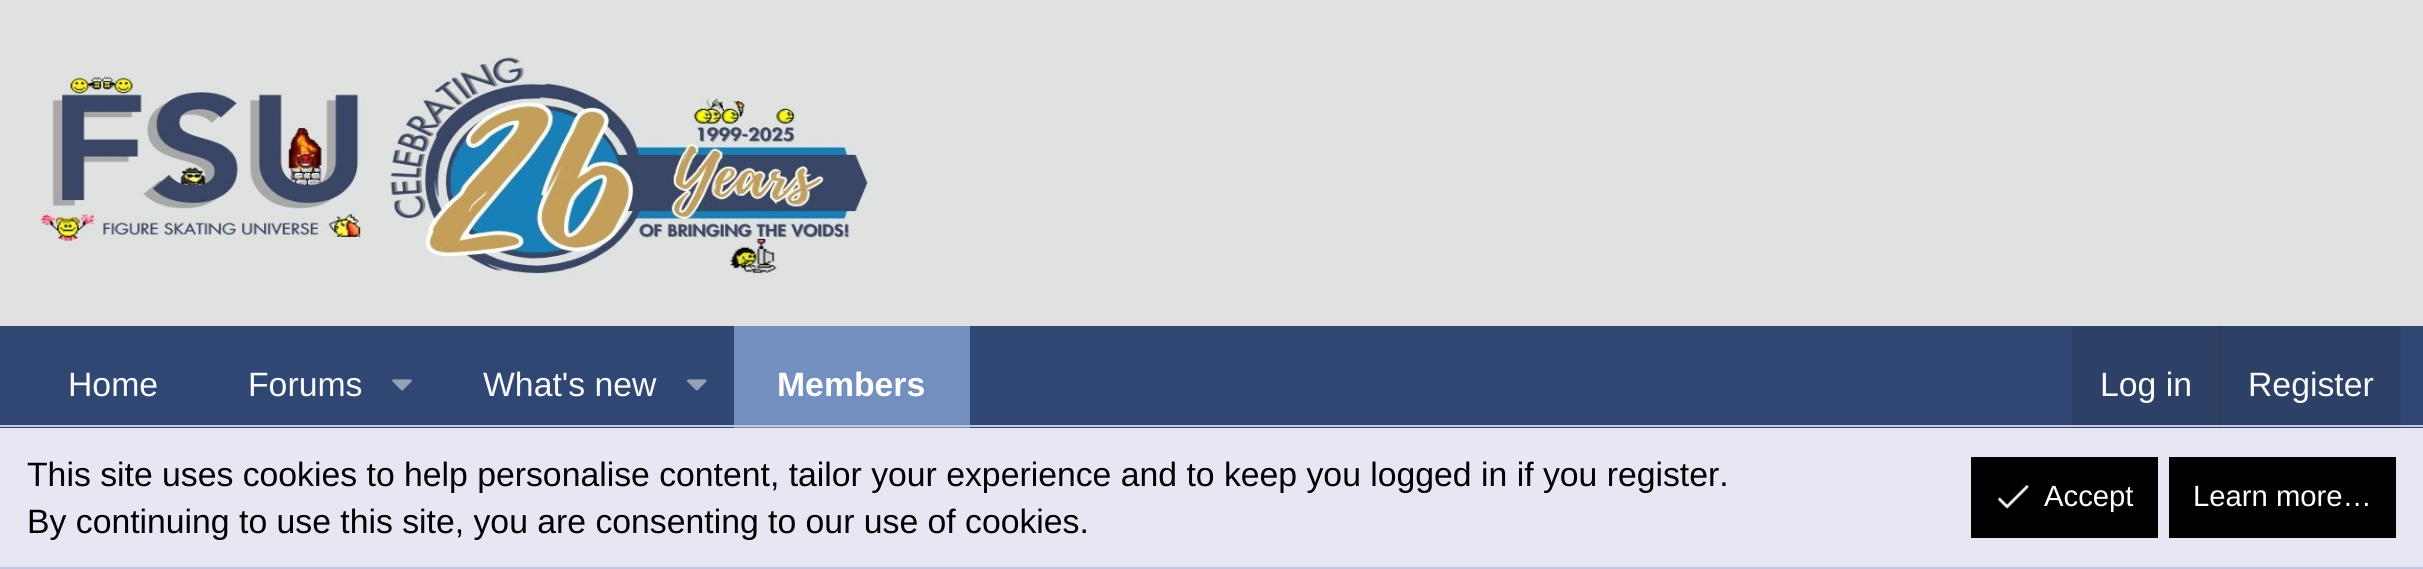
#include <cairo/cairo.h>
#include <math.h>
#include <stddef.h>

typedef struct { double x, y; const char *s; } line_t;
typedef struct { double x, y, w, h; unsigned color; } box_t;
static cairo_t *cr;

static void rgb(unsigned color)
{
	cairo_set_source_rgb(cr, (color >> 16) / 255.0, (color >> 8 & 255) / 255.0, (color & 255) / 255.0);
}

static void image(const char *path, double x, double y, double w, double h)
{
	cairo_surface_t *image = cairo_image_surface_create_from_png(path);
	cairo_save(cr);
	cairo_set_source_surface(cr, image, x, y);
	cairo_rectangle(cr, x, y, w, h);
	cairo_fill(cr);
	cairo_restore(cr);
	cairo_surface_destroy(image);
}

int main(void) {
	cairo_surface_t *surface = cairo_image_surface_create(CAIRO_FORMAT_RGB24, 2423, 569);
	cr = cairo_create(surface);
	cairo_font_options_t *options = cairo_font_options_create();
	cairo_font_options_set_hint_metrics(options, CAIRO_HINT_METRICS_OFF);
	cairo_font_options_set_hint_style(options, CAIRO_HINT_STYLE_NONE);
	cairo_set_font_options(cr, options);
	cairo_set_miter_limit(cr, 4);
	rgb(0xe1e1e2);
	cairo_paint(cr);
	image("img/1.png", 39, 52, 836, 230);
	rgb(0x304774);
	cairo_rectangle(cr, 0, 326, 2423, 102);
	cairo_fill(cr);
	image("img/2.png", 392, 379, 20, 12);
	image("img/3.png", 687, 379, 20, 12);
	{
		static const box_t items[] = {
			{734, 326, 236, 102, 0x738fbf},
			{2072, 326, 329, 102, 0x2d4167},
			{2219, 326, 2, 102, 0x2b3c5c},
			{0, 428, 2423, 139, 0xe7e7f3},
			{0, 425, 2423, 2, 0xc6c6e2},
			{0, 567, 2423, 2, 0xc6c6e2},
			{1971, 457, 187, 81, 0x000000},
		};
		for (size_t i = 0; i < sizeof items / sizeof *items; i++) {
			rgb(items[i].color);
			cairo_rectangle(cr, items[i].x, items[i].y, items[i].w, items[i].h);
			cairo_fill(cr);
		}
	}
	image("img/4.png", 1997, 485, 32, 24);
	cairo_rectangle(cr, 2169, 457, 227, 81);
	cairo_fill(cr);
	cairo_select_font_face(cr, "Liberation Sans", CAIRO_FONT_SLANT_NORMAL, CAIRO_FONT_WEIGHT_NORMAL);
	cairo_set_font_size(cr, 33.75);
	rgb(0xf9f9f9);
	{
		static const line_t items[] = {
			{68, 396, "Home"},
			{248, 396, "Forums"},
			{483, 396, "What's new"},
		};
		for (size_t i = 0; i < sizeof items / sizeof *items; i++) {
			cairo_move_to(cr, items[i].x, items[i].y);
			cairo_show_text(cr, items[i].s);
		}
	}
	cairo_select_font_face(cr, "Liberation Sans", CAIRO_FONT_SLANT_NORMAL, CAIRO_FONT_WEIGHT_BOLD);
	rgb(0xffffff);
	cairo_move_to(cr, 777, 396);
	cairo_show_text(cr, "Members");
	cairo_select_font_face(cr, "Liberation Sans", CAIRO_FONT_SLANT_NORMAL, CAIRO_FONT_WEIGHT_NORMAL);
	rgb(0xf9f9f9);
	cairo_move_to(cr, 2100, 396);
	cairo_show_text(cr, "Log in");
	cairo_move_to(cr, 2248, 396);
	cairo_show_text(cr, "Register");
	rgb(0x000000);
	cairo_move_to(cr, 27, 486);
	cairo_show_text(cr, "This site uses cookies to help personalise content, tailor your experience and to keep you logged in if you register.");
	cairo_move_to(cr, 27, 533);
	cairo_show_text(cr, "By continuing to use this site, you are consenting to our use of cookies.");
	cairo_set_font_size(cr, 29.25);
	rgb(0xffffff);
	cairo_move_to(cr, 2044, 506);
	cairo_show_text(cr, "Accept");
	cairo_move_to(cr, 2193, 506);
	cairo_show_text(cr, "Learn more…");
	cairo_surface_write_to_png(surface, "page.png");
	cairo_font_options_destroy(options);
	cairo_destroy(cr);
	cairo_surface_destroy(surface);
	return 0;
}
